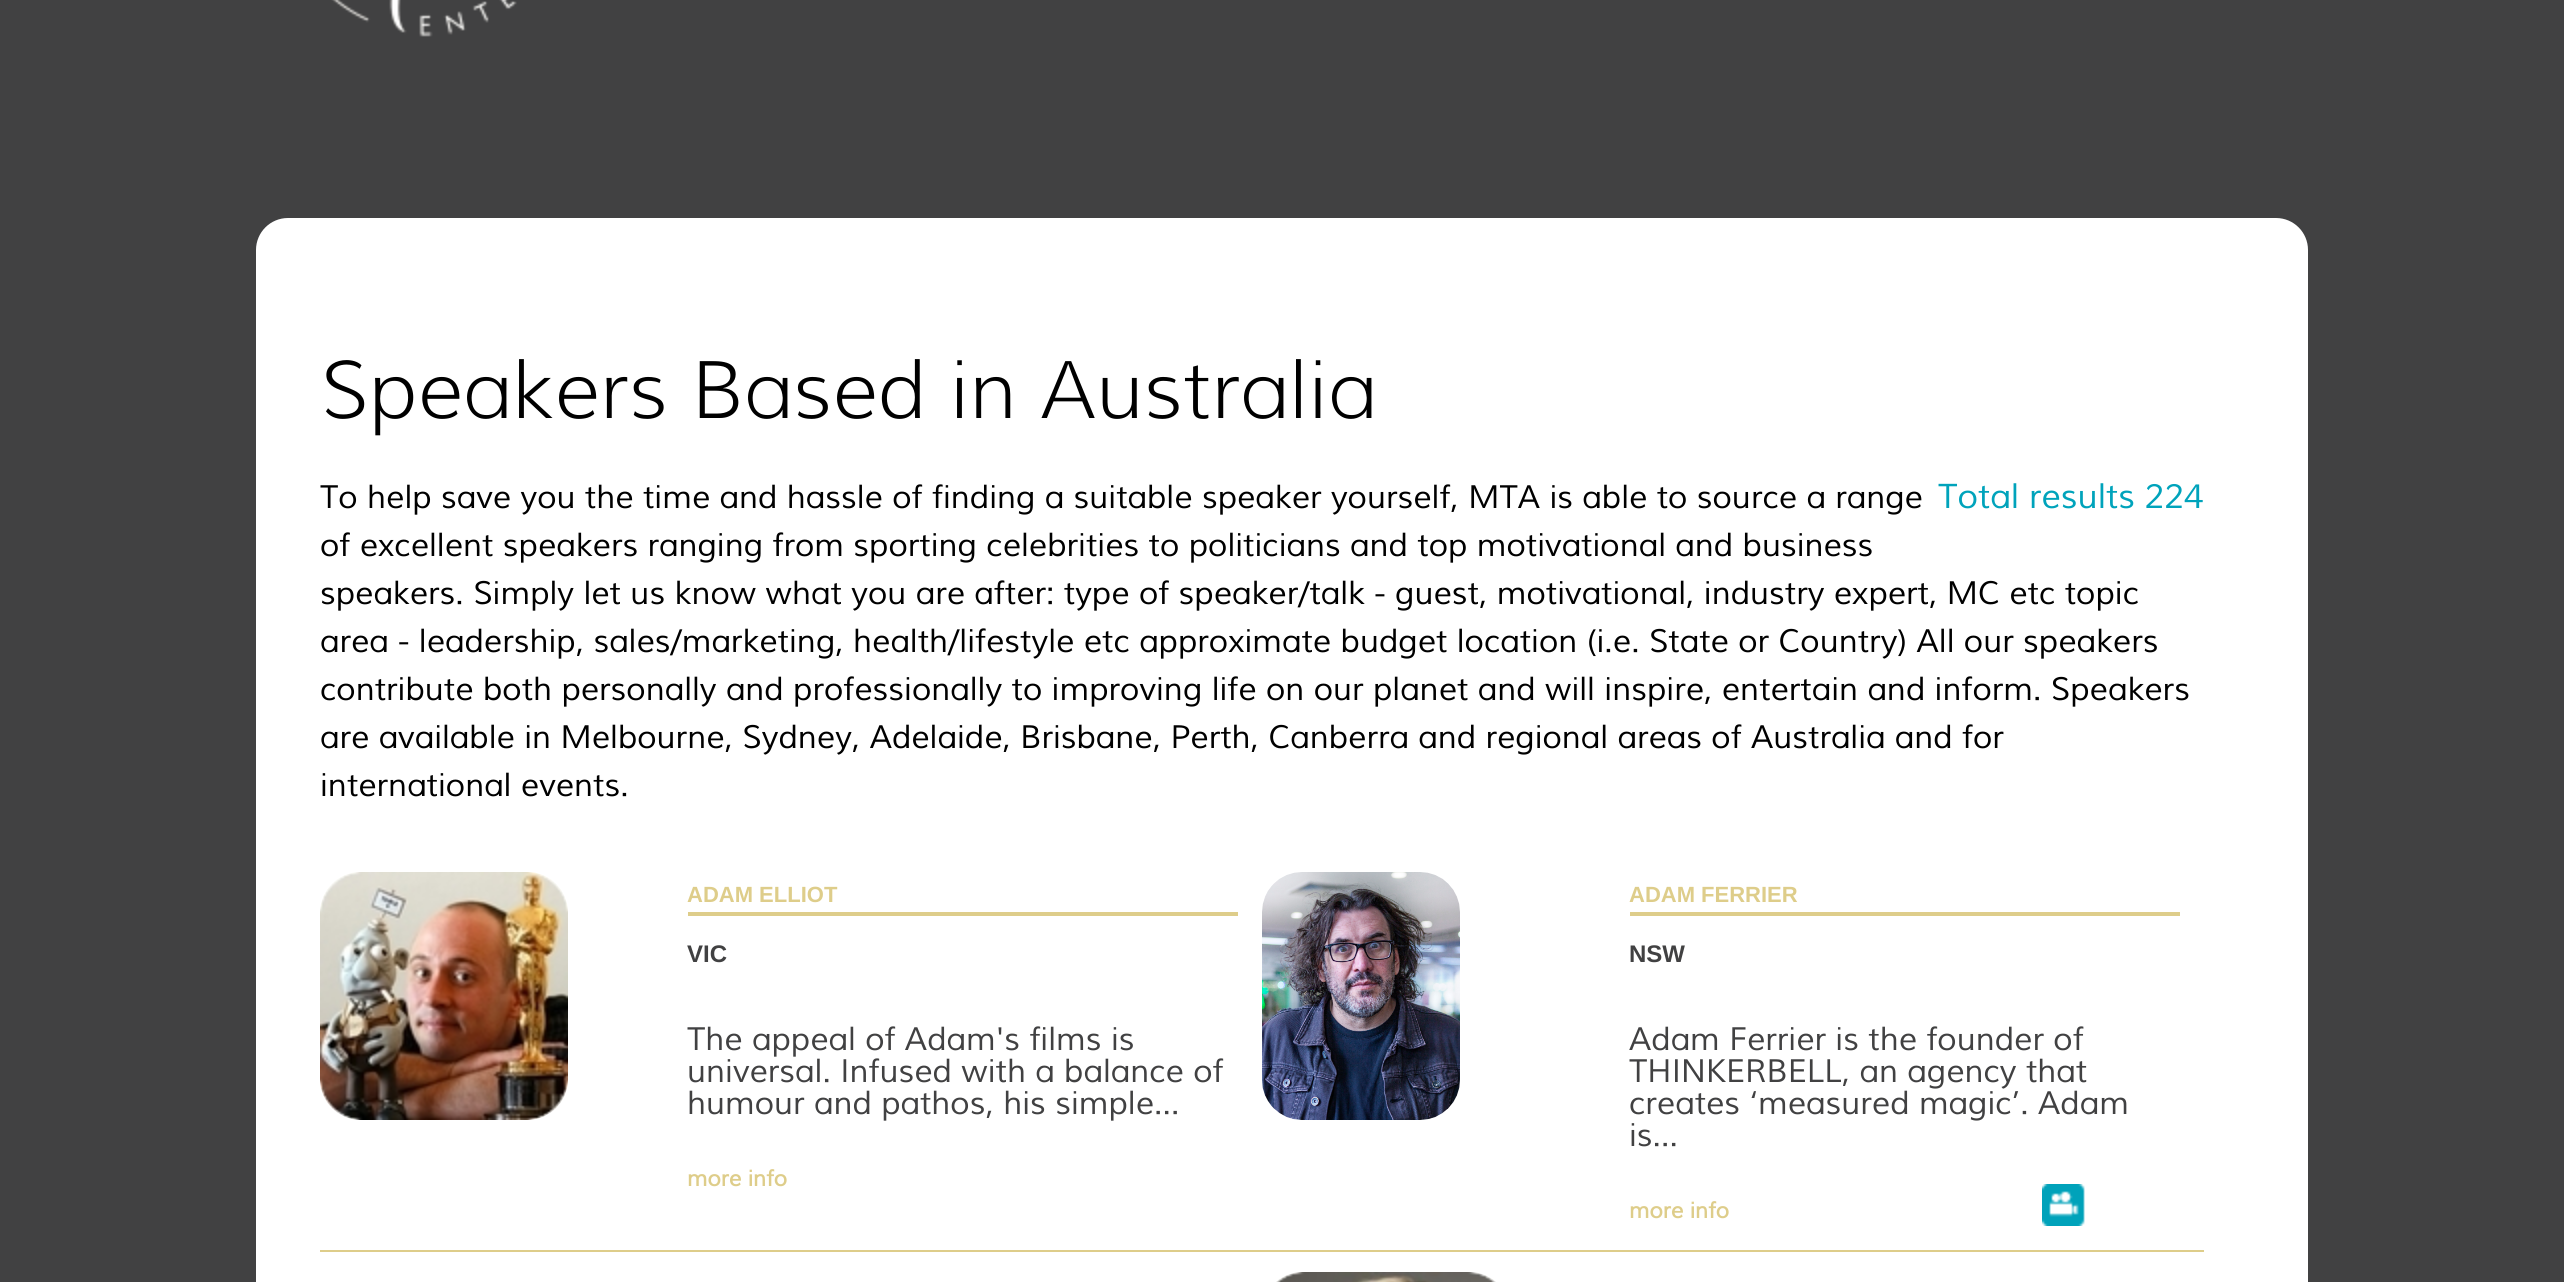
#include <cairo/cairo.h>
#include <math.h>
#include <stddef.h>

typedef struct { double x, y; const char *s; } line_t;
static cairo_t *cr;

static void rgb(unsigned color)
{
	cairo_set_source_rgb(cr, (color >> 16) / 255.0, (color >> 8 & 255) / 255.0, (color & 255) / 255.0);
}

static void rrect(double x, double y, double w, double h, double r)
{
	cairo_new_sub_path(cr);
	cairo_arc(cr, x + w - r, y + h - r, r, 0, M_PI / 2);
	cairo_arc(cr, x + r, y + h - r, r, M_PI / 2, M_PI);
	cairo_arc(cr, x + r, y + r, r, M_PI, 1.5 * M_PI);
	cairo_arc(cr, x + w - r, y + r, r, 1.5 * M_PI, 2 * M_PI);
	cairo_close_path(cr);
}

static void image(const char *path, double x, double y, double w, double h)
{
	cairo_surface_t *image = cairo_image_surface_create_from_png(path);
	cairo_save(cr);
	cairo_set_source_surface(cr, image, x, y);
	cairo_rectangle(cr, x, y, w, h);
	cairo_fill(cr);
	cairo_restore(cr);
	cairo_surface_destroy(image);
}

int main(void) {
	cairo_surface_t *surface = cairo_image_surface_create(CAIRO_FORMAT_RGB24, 2564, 1282);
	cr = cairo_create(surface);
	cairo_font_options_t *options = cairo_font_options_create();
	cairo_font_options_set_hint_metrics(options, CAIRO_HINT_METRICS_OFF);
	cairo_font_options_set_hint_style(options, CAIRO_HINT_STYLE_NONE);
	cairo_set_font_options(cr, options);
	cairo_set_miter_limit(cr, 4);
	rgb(0x414142);
	cairo_paint(cr);
	image("img/1.png", 331, 0, 186, 37);
	rgb(0xffffff);
	rrect(256, 218, 2052, 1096, 32);
	cairo_fill(cr);
	rgb(0xdecd8a);
	cairo_rectangle(cr, 320, 1250, 1884, 2);
	cairo_fill(cr);
	image("img/2.png", 320, 872, 248, 248);
	cairo_rectangle(cr, 688, 912, 550, 4);
	cairo_fill(cr);
	image("img/3.png", 1262, 872, 198, 248);
	cairo_rectangle(cr, 1630, 912, 550, 4);
	cairo_fill(cr);
	image("img/4.png", 2042, 1184, 43, 42);
	image("img/5.png", 1276, 1272, 220, 10);
	cairo_select_font_face(cr, "Muli Light", CAIRO_FONT_SLANT_NORMAL, CAIRO_FONT_WEIGHT_NORMAL);
	cairo_set_font_size(cr, 80);
	rgb(0x000000);
	cairo_move_to(cr, 320, 418);
	cairo_show_text(cr, "Speakers Based in Australia");
	cairo_select_font_face(cr, "Muli", CAIRO_FONT_SLANT_ITALIC, CAIRO_FONT_WEIGHT_NORMAL);
	cairo_set_font_size(cr, 34);
	rgb(0x00a3bb);
	cairo_move_to(cr, 1938, 508);
	cairo_show_text(cr, "Total results 224");
	cairo_set_font_size(cr, 32);
	rgb(0x000000);
	{
		static const line_t items[] = {
			{320, 508, "To help save you the time and hassle of finding a suitable speaker yourself, MTA is able to source a range"},
			{320, 556, "of excellent speakers ranging from sporting celebrities to politicians and top motivational and business"},
			{320, 604, "speakers. Simply let us know what you are after: type of speaker/talk - guest, motivational, industry expert, MC etc topic"},
			{320, 652, "area - leadership, sales/marketing, health/lifestyle etc approximate budget location (i.e. State or Country) All our speakers"},
			{320, 700, "contribute both personally and professionally to improving life on our planet and will inspire, entertain and inform. Speakers"},
			{320, 748, "are available in Melbourne, Sydney, Adelaide, Brisbane, Perth, Canberra and regional areas of Australia and for"},
			{320, 796, "international events."},
		};
		for (size_t i = 0; i < sizeof items / sizeof *items; i++) {
			cairo_move_to(cr, items[i].x, items[i].y);
			cairo_show_text(cr, items[i].s);
		}
	}
	cairo_select_font_face(cr, "Liberation Sans", CAIRO_FONT_SLANT_NORMAL, CAIRO_FONT_WEIGHT_BOLD);
	cairo_set_font_size(cr, 22);
	rgb(0xdecd8a);
	cairo_move_to(cr, 687, 902);
	cairo_show_text(cr, "ADAM ELLIOT");
	cairo_set_font_size(cr, 24);
	rgb(0x414142);
	cairo_move_to(cr, 687, 962);
	cairo_show_text(cr, "VIC");
	cairo_select_font_face(cr, "Muli", CAIRO_FONT_SLANT_ITALIC, CAIRO_FONT_WEIGHT_NORMAL);
	cairo_set_font_size(cr, 32);
	{
		static const line_t items[] = {
			{687, 1050, "The appeal of Adam's films is"},
			{687, 1082, "universal. Infused with a balance of"},
			{687, 1114, "humour and pathos, his simple..."},
		};
		for (size_t i = 0; i < sizeof items / sizeof *items; i++) {
			cairo_move_to(cr, items[i].x, items[i].y);
			cairo_show_text(cr, items[i].s);
		}
	}
	cairo_select_font_face(cr, "Muli", CAIRO_FONT_SLANT_ITALIC, CAIRO_FONT_WEIGHT_BOLD);
	cairo_set_font_size(cr, 22);
	rgb(0xdecd8a);
	cairo_move_to(cr, 687, 1186);
	cairo_show_text(cr, "more info");
	cairo_select_font_face(cr, "Liberation Sans", CAIRO_FONT_SLANT_NORMAL, CAIRO_FONT_WEIGHT_BOLD);
	cairo_move_to(cr, 1629, 902);
	cairo_show_text(cr, "ADAM FERRIER");
	cairo_set_font_size(cr, 24);
	rgb(0x414142);
	cairo_move_to(cr, 1629, 962);
	cairo_show_text(cr, "NSW");
	cairo_select_font_face(cr, "Muli", CAIRO_FONT_SLANT_ITALIC, CAIRO_FONT_WEIGHT_NORMAL);
	cairo_set_font_size(cr, 32);
	{
		static const line_t items[] = {
			{1629, 1050, "Adam Ferrier is the founder of"},
			{1629, 1082, "THINKERBELL, an agency that"},
			{1629, 1114, "creates ‘measured magic’. Adam"},
			{1629, 1146, "is..."},
		};
		for (size_t i = 0; i < sizeof items / sizeof *items; i++) {
			cairo_move_to(cr, items[i].x, items[i].y);
			cairo_show_text(cr, items[i].s);
		}
	}
	cairo_select_font_face(cr, "Muli", CAIRO_FONT_SLANT_ITALIC, CAIRO_FONT_WEIGHT_BOLD);
	cairo_set_font_size(cr, 22);
	rgb(0xdecd8a);
	cairo_move_to(cr, 1629, 1218);
	cairo_show_text(cr, "more info");
	cairo_surface_write_to_png(surface, "page.png");
	cairo_font_options_destroy(options);
	cairo_destroy(cr);
	cairo_surface_destroy(surface);
	return 0;
}
